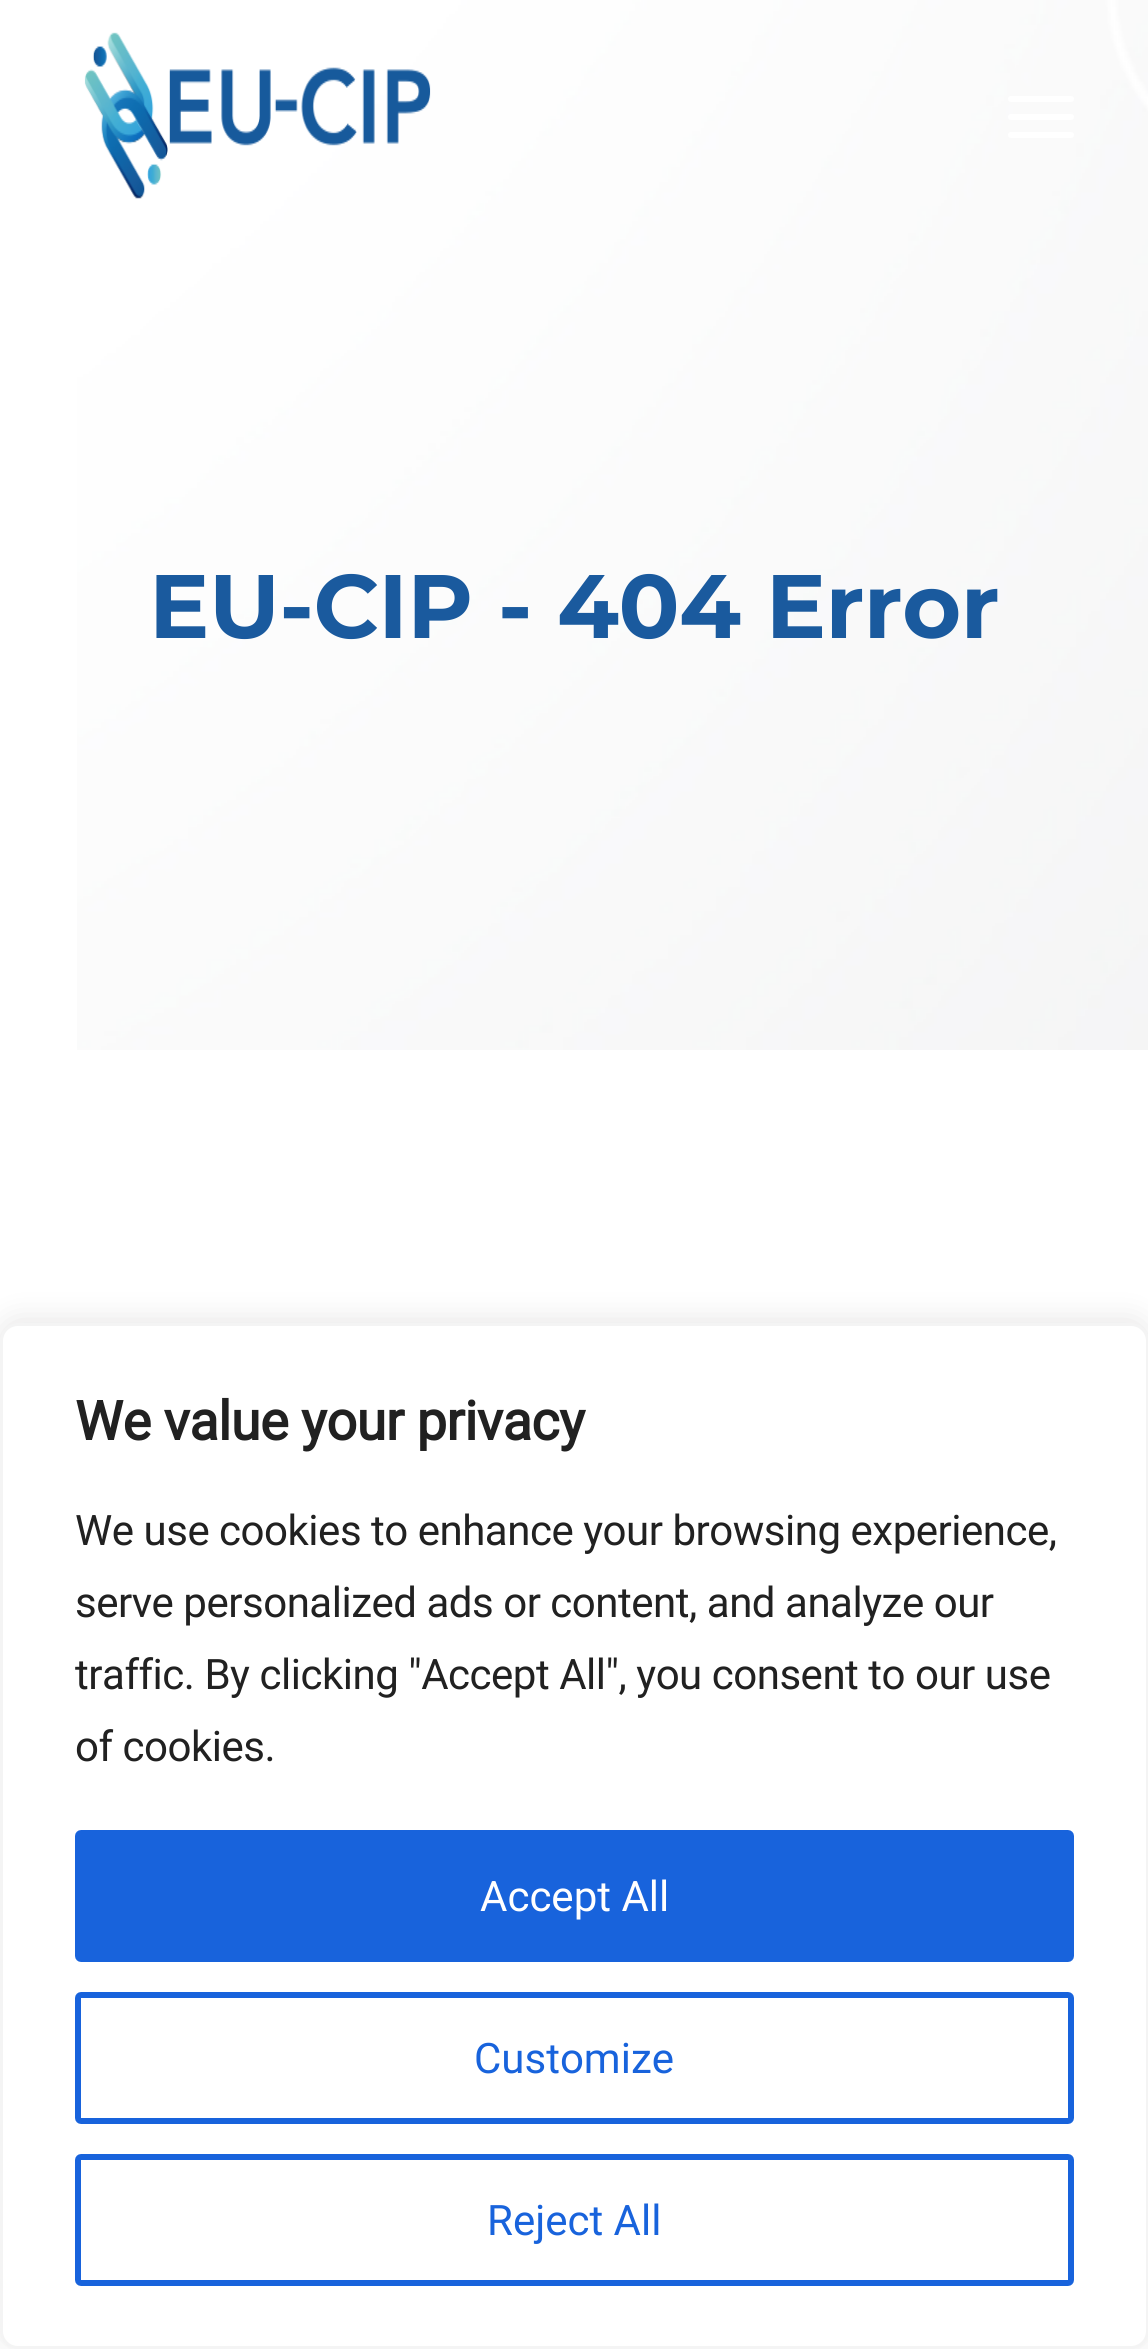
#include <cairo/cairo.h>
#include <math.h>
#include <stddef.h>

typedef struct { double x, y; const char *s; } line_t;
static cairo_t *cr;

static void rgb(unsigned color)
{
	cairo_set_source_rgb(cr, (color >> 16) / 255.0, (color >> 8 & 255) / 255.0, (color & 255) / 255.0);
}

static void tracked(double x, double y, const char *s, double letter, double word)
{
	cairo_move_to(cr, x, y);
	while (*s) {
		char ch[5] = {0};
		int n = 0;
		do ch[n++] = *s++; while ((*s & 0xC0) == 0x80);
		cairo_show_text(cr, ch);
		cairo_rel_move_to(cr, letter + word * (*ch == ' '), 0);
	}
}

static void rrect(double x, double y, double w, double h, double r)
{
	cairo_new_sub_path(cr);
	cairo_arc(cr, x + w - r, y + h - r, r, 0, M_PI / 2);
	cairo_arc(cr, x + r, y + h - r, r, M_PI / 2, M_PI);
	cairo_arc(cr, x + r, y + r, r, M_PI, 1.5 * M_PI);
	cairo_arc(cr, x + w - r, y + r, r, 1.5 * M_PI, 2 * M_PI);
	cairo_close_path(cr);
}

static void soft_shadow(double x, double y, double w, double h, double r, double blur, double alpha)
{
	cairo_push_group_with_content(cr, CAIRO_CONTENT_ALPHA);
	cairo_set_operator(cr, CAIRO_OPERATOR_SOURCE);
	for (int i = 15; i >= -15 && fmin(w, h) + blur * i / 3 > 0; i -= 2) {
		double e = blur * i / 6;
		cairo_set_source_rgba(cr, 0, 0, 0, alpha * erfc((i - 1) / 8.5) / 2);
		rrect(x - e, y - e, w + 2 * e, h + 2 * e, fmax(0, fmin(r + e + blur * .6, fmin(w, h) / 2 + e)));
		cairo_fill(cr);
	}
	cairo_pattern_t *soft = cairo_pop_group(cr);
	cairo_mask(cr, soft);
	cairo_pattern_destroy(soft);
}

static void image(const char *path, double x, double y, double w, double h)
{
	cairo_surface_t *image = cairo_image_surface_create_from_png(path);
	cairo_save(cr);
	cairo_set_source_surface(cr, image, x, y);
	cairo_rectangle(cr, x, y, w, h);
	cairo_fill(cr);
	cairo_restore(cr);
	cairo_surface_destroy(image);
}

int main(void) {
	cairo_surface_t *surface = cairo_image_surface_create(CAIRO_FORMAT_RGB24, 1148, 2349);
	cr = cairo_create(surface);
	cairo_font_options_t *options = cairo_font_options_create();
	cairo_font_options_set_hint_metrics(options, CAIRO_HINT_METRICS_OFF);
	cairo_font_options_set_hint_style(options, CAIRO_HINT_STYLE_NONE);
	cairo_set_font_options(cr, options);
	cairo_set_miter_limit(cr, 4);
	rgb(0xffffff);
	cairo_paint(cr);
	image("img/2.png", 77, 0, 1071, 1050);
	image("img/1.png", 84, 32, 347, 167);
	rgb(0xffffff);
	rrect(1008, 96, 66, 6, 3);
	cairo_fill(cr);
	rrect(1008, 114, 66, 6, 3);
	cairo_fill(cr);
	rrect(1008, 132, 66, 6, 3);
	cairo_fill(cr);
	rgb(0xacabab);
	soft_shadow(0, 1320, 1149, 1026, 18, 15, 0.3);
	rgb(0xffffff);
	rrect(1.5, 1324.5, 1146, 1023, 16.5);
	cairo_fill_preserve(cr);
	rgb(0xf4f4f4);
	cairo_set_line_width(cr, 3);
	cairo_stroke(cr);
	rgb(0x1863dc);
	rrect(78, 1833, 993, 126, 3);
	cairo_fill_preserve(cr);
	cairo_set_line_width(cr, 6);
	cairo_stroke(cr);
	rrect(78, 1995, 993, 126, 3);
	cairo_stroke(cr);
	rrect(78, 2157, 993, 126, 3);
	cairo_stroke(cr);
	cairo_select_font_face(cr, "Montserrat", CAIRO_FONT_SLANT_NORMAL, CAIRO_FONT_WEIGHT_BOLD);
	cairo_set_font_size(cr, 90);
	rgb(0x1a5a9e);
	tracked(149, 638, "EU-CIP - 404 Error", -0.48, 0);
	cairo_select_font_face(cr, "Roboto", CAIRO_FONT_SLANT_NORMAL, CAIRO_FONT_WEIGHT_BOLD);
	cairo_set_font_size(cr, 54);
	rgb(0x212121);
	tracked(75, 1440, "We value your privacy", -0.48, 0);
	cairo_select_font_face(cr, "Roboto", CAIRO_FONT_SLANT_NORMAL, CAIRO_FONT_WEIGHT_NORMAL);
	cairo_set_font_size(cr, 42);
	{
		static const line_t items[] = {
			{75, 1545, "We use cookies to enhance your browsing experience,"},
			{75, 1617, "serve personalized ads or content, and analyze our"},
			{75, 1689, "traffic. By clicking \"Accept All\", you consent to our use"},
			{75, 1761, "of cookies."},
		};
		for (size_t i = 0; i < sizeof items / sizeof *items; i++) {
			tracked(items[i].x, items[i].y, items[i].s, -0.48, 0);
		}
	}
	rgb(0xffffff);
	cairo_move_to(cr, 480, 1911);
	cairo_show_text(cr, "Accept All");
	rgb(0x1863dc);
	cairo_move_to(cr, 474, 2073);
	cairo_show_text(cr, "Customize");
	cairo_move_to(cr, 487, 2235);
	cairo_show_text(cr, "Reject All");
	cairo_surface_write_to_png(surface, "page.png");
	cairo_font_options_destroy(options);
	cairo_destroy(cr);
	cairo_surface_destroy(surface);
	return 0;
}
